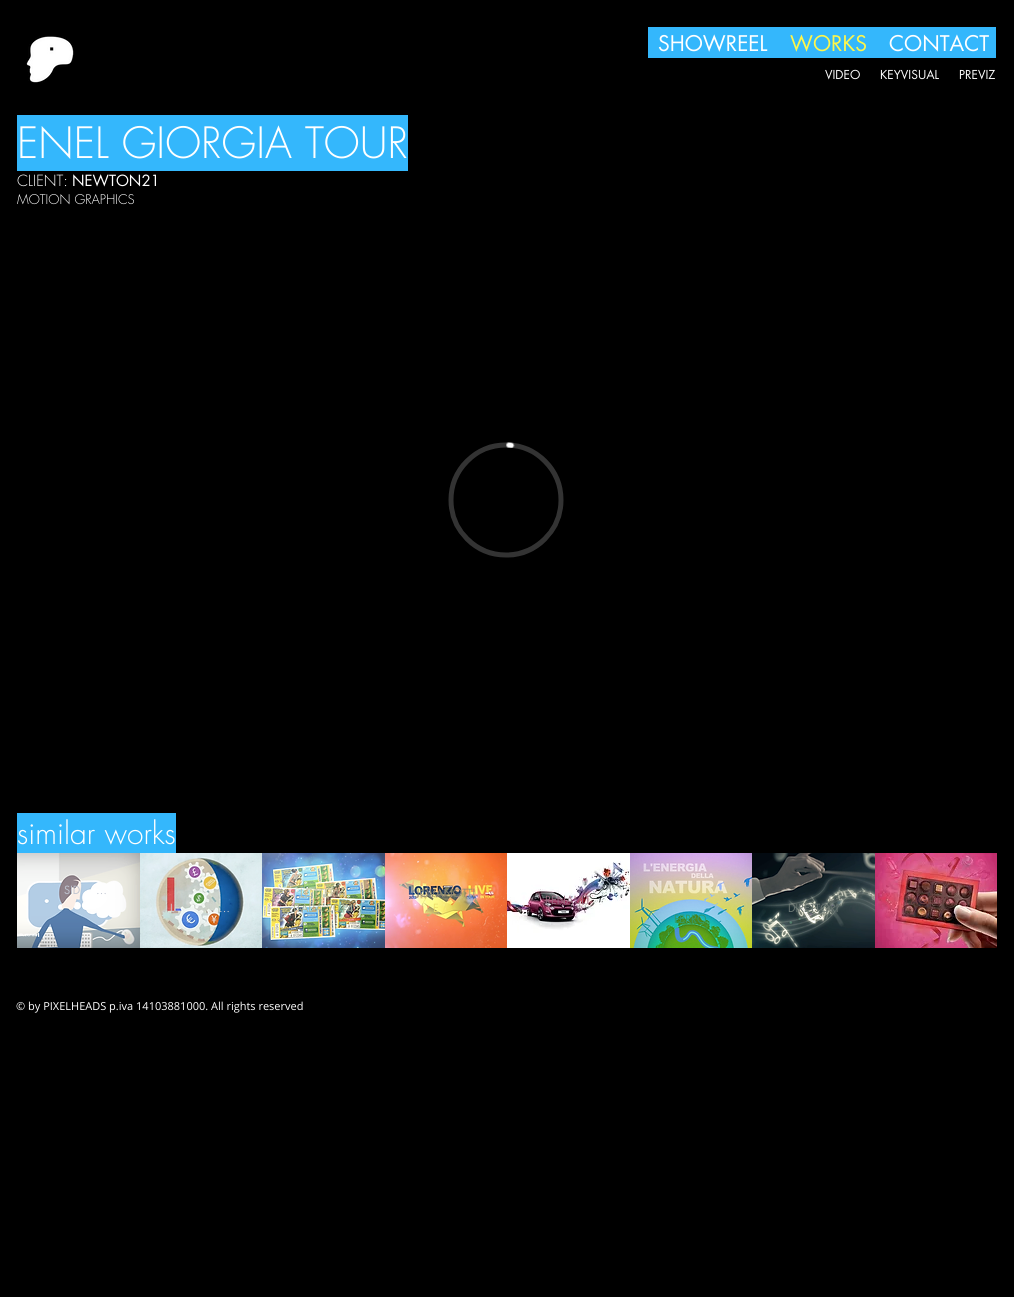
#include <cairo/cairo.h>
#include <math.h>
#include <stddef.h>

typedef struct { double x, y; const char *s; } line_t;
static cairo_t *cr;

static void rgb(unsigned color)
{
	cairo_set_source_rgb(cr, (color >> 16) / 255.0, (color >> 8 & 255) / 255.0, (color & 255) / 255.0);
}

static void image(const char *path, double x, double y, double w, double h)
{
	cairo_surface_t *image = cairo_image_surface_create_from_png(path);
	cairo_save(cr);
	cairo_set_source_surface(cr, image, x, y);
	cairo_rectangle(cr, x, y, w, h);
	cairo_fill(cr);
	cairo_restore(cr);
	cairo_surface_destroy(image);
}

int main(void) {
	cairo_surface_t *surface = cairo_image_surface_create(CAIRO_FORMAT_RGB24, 1014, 1297);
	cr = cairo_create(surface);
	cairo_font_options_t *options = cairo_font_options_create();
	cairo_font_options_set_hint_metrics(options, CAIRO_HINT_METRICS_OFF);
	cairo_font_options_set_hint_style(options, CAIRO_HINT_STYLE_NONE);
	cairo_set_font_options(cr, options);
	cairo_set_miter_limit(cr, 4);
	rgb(0x000000);
	cairo_paint(cr);
	rgb(0x34b7fc);
	cairo_rectangle(cr, 648, 27, 348, 31);
	cairo_fill(cr);
	image("img/1.png", 26, 36, 48, 47);
	cairo_rectangle(cr, 17, 115, 391, 56);
	cairo_fill(cr);
	image("img/2.png", 448, 442, 116, 116);
	cairo_rectangle(cr, 17, 813, 159, 40);
	cairo_fill(cr);
	image("img/3.png", 17, 853, 123, 95);
	image("img/4.png", 262, 853, 123, 95);
	image("img/5.png", 385, 853, 122, 95);
	image("img/6.png", 507, 853, 123, 95);
	image("img/7.png", 875, 853, 122, 95);
	image("img/8.png", 140, 853, 122, 95);
	image("img/9.png", 752, 853, 123, 95);
	image("img/10.png", 630, 853, 122, 95);
	cairo_select_font_face(cr, "futura", CAIRO_FONT_SLANT_NORMAL, CAIRO_FONT_WEIGHT_NORMAL);
	cairo_set_font_size(cr, 21);
	rgb(0xffffff);
	cairo_move_to(cr, 658, 51);
	cairo_show_text(cr, "SHOWREEL");
	rgb(0xfff64a);
	cairo_move_to(cr, 790, 51);
	cairo_show_text(cr, "WORKS");
	rgb(0xffffff);
	cairo_move_to(cr, 889, 51);
	cairo_show_text(cr, "CONTACT");
	cairo_set_font_size(cr, 12);
	{
		static const line_t items[] = {
			{825, 79, "VIDEO"},
			{880, 79, "KEYVISUAL"},
			{959, 79, "PREVIZ"},
		};
		for (size_t i = 0; i < sizeof items / sizeof *items; i++) {
			cairo_move_to(cr, items[i].x, items[i].y);
			cairo_show_text(cr, items[i].s);
		}
	}
	cairo_select_font_face(cr, "futura Light", CAIRO_FONT_SLANT_NORMAL, CAIRO_FONT_WEIGHT_NORMAL);
	cairo_set_font_size(cr, 42);
	cairo_move_to(cr, 17, 158);
	cairo_show_text(cr, "ENEL GIORGIA TOUR");
	cairo_set_font_size(cr, 15);
	cairo_move_to(cr, 17, 186);
	cairo_show_text(cr, "CLIENT:");
	cairo_select_font_face(cr, "futura", CAIRO_FONT_SLANT_NORMAL, CAIRO_FONT_WEIGHT_NORMAL);
	cairo_move_to(cr, 72, 186);
	cairo_show_text(cr, "NEWTON21");
	cairo_select_font_face(cr, "futura Light", CAIRO_FONT_SLANT_NORMAL, CAIRO_FONT_WEIGHT_NORMAL);
	cairo_set_font_size(cr, 13);
	cairo_move_to(cr, 17, 204);
	cairo_show_text(cr, "MOTION GRAPHICS");
	cairo_set_font_size(cr, 30);
	cairo_move_to(cr, 17, 844);
	cairo_show_text(cr, "similar works");
	cairo_select_font_face(cr, "futura", CAIRO_FONT_SLANT_NORMAL, CAIRO_FONT_WEIGHT_NORMAL);
	cairo_set_font_size(cr, 11);
	rgb(0xc0c5d1);
	cairo_move_to(cr, 64, 894);
	cairo_show_text(cr, "SID");
	cairo_move_to(cr, 96, 894);
	cairo_show_text(cr, "…");
	rgb(0xc0bf9d);
	cairo_move_to(cr, 300, 897);
	cairo_show_text(cr, "LOTTERIA");
	rgb(0xa9b293);
	cairo_move_to(cr, 293, 912);
	cairo_show_text(cr, "ITALIA 2014");
	rgb(0x938970);
	cairo_move_to(cr, 416, 897);
	cairo_show_text(cr, "JOVANOTTI");
	rgb(0xeede6c);
	cairo_move_to(cr, 433, 912);
	cairo_show_text(cr, "E");
	rgb(0x996f81);
	cairo_move_to(cr, 545, 904);
	cairo_show_text(cr, "RENAULT");
	rgb(0x724344);
	cairo_move_to(cr, 905, 904);
	cairo_show_text(cr, "PAGOBA…");
	rgb(0xcecccd);
	cairo_move_to(cr, 170, 912);
	cairo_show_text(cr, "L");
	cairo_move_to(cr, 219, 912);
	cairo_show_text(cr, "…");
	rgb(0x6c7773);
	cairo_move_to(cr, 788, 912);
	cairo_show_text(cr, "DIRETTORI");
	rgb(0x319b6a);
	cairo_move_to(cr, 674, 923);
	cairo_show_text(cr, "FERRO");
	cairo_select_font_face(cr, "Open Sans", CAIRO_FONT_SLANT_NORMAL, CAIRO_FONT_WEIGHT_NORMAL);
	rgb(0xffffff);
	cairo_move_to(cr, 16, 1010);
	cairo_show_text(cr, "© by PIXELHEADS p.iva 14103881000. All rights reserved");
	cairo_surface_write_to_png(surface, "page.png");
	cairo_font_options_destroy(options);
	cairo_destroy(cr);
	cairo_surface_destroy(surface);
	return 0;
}
